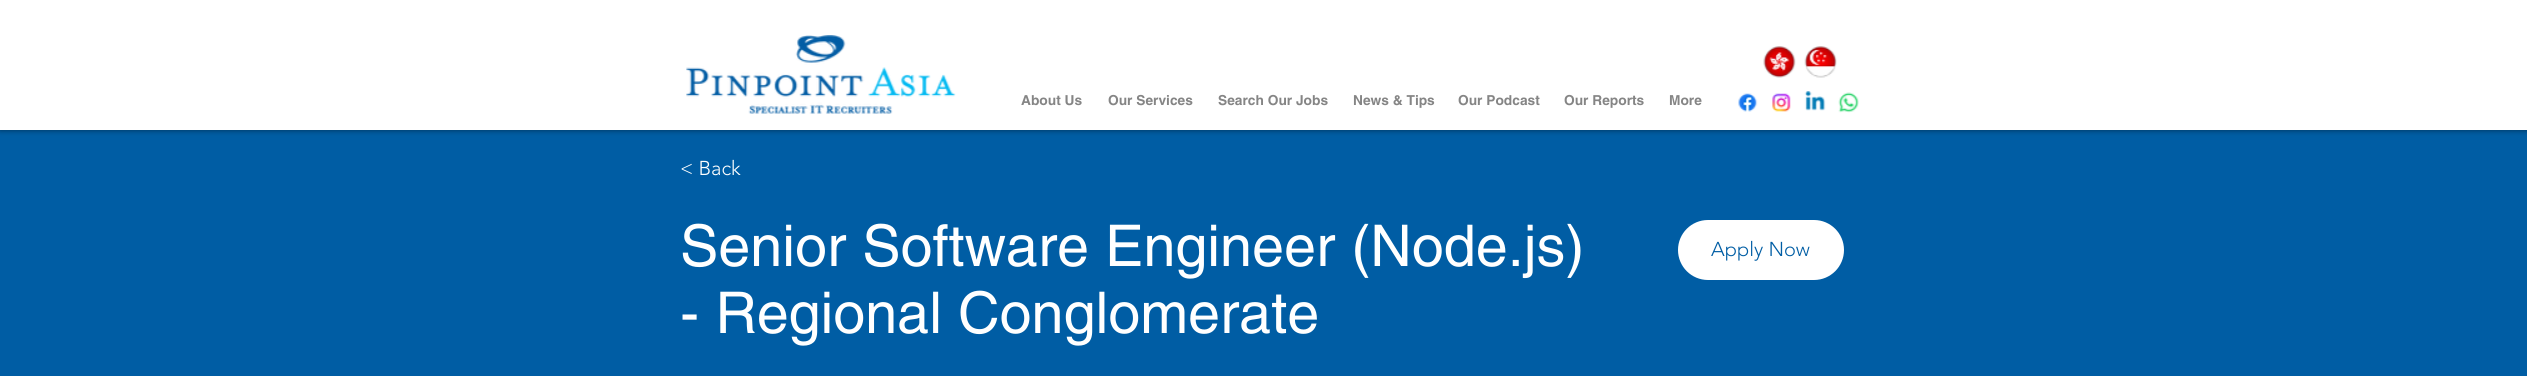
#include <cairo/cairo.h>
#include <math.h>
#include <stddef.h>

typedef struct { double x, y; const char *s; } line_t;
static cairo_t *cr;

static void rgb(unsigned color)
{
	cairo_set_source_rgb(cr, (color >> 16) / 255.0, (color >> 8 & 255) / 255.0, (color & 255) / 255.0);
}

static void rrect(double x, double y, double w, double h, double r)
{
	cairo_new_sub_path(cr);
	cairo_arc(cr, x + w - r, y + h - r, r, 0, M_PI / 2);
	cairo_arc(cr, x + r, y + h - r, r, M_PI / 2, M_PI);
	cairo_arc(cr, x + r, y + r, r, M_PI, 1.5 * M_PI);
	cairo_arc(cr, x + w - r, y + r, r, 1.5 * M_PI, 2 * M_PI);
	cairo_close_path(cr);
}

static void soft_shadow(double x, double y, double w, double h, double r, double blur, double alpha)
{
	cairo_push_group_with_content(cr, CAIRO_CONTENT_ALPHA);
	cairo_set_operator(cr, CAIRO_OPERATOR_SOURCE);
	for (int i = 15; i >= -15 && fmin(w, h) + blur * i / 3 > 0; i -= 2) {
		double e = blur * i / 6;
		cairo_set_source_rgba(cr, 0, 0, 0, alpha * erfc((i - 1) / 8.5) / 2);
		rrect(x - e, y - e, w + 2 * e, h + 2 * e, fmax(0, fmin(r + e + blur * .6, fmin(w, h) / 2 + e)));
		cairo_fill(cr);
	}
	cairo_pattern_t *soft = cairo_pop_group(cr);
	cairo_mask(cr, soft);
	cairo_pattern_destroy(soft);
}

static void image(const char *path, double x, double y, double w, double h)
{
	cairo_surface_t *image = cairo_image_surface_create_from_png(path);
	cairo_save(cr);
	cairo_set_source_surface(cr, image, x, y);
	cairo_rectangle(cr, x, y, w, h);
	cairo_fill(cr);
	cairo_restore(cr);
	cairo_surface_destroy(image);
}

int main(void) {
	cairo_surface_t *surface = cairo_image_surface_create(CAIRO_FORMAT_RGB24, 2527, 376);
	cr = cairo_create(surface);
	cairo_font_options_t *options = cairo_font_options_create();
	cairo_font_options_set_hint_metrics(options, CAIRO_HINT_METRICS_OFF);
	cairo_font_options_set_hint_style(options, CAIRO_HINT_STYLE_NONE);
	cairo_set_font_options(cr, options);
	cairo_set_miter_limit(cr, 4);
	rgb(0x005da4);
	cairo_paint(cr);
	rgb(0x000000);
	soft_shadow(0, 0, 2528, 130, 0, 3, 0.5);
	rgb(0xffffff);
	cairo_rectangle(cr, 0, 0, 2527, 130);
	cairo_fill(cr);
	image("img/1.png", 686, 35, 270, 79);
	image("img/2.png", 1763, 46, 33, 32);
	image("img/3.png", 1804, 46, 33, 32);
	image("img/4.png", 1738, 93, 20, 19);
	image("img/5.png", 1772, 93, 19, 19);
	image("img/6.png", 1804, 91, 22, 20);
	image("img/7.png", 1838, 92, 21, 21);
	rrect(1678, 220, 166, 60, 30);
	cairo_fill(cr);
	cairo_select_font_face(cr, "helvetica", CAIRO_FONT_SLANT_NORMAL, CAIRO_FONT_WEIGHT_BOLD);
	cairo_set_font_size(cr, 13.75);
	rgb(0x858585);
	{
		static const line_t items[] = {
			{1021, 105, "About Us"},
			{1108, 105, "Our Services"},
			{1218, 105, "Search Our Jobs"},
			{1353, 105, "News & Tips"},
			{1458, 105, "Our Podcast"},
			{1564, 105, "Our Reports"},
			{1669, 105, "More"},
		};
		for (size_t i = 0; i < sizeof items / sizeof *items; i++) {
			cairo_move_to(cr, items[i].x, items[i].y);
			cairo_show_text(cr, items[i].s);
		}
	}
	cairo_select_font_face(cr, "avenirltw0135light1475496 Light", CAIRO_FONT_SLANT_NORMAL, CAIRO_FONT_WEIGHT_NORMAL);
	cairo_set_font_size(cr, 20);
	rgb(0xffffff);
	cairo_move_to(cr, 680, 175);
	cairo_show_text(cr, "< Back");
	cairo_select_font_face(cr, "helvetica", CAIRO_FONT_SLANT_NORMAL, CAIRO_FONT_WEIGHT_NORMAL);
	cairo_set_font_size(cr, 57.5);
	cairo_move_to(cr, 680, 266);
	cairo_show_text(cr, "Senior Software Engineer (Node.js)");
	cairo_move_to(cr, 680, 333);
	cairo_show_text(cr, "- Regional Conglomerate");
	cairo_select_font_face(cr, "avenirltw0135light1475496 Light", CAIRO_FONT_SLANT_NORMAL, CAIRO_FONT_WEIGHT_NORMAL);
	cairo_set_font_size(cr, 20);
	rgb(0x005da4);
	cairo_move_to(cr, 1711, 256);
	cairo_show_text(cr, "Apply Now");
	cairo_surface_write_to_png(surface, "page.png");
	cairo_font_options_destroy(options);
	cairo_destroy(cr);
	cairo_surface_destroy(surface);
	return 0;
}
